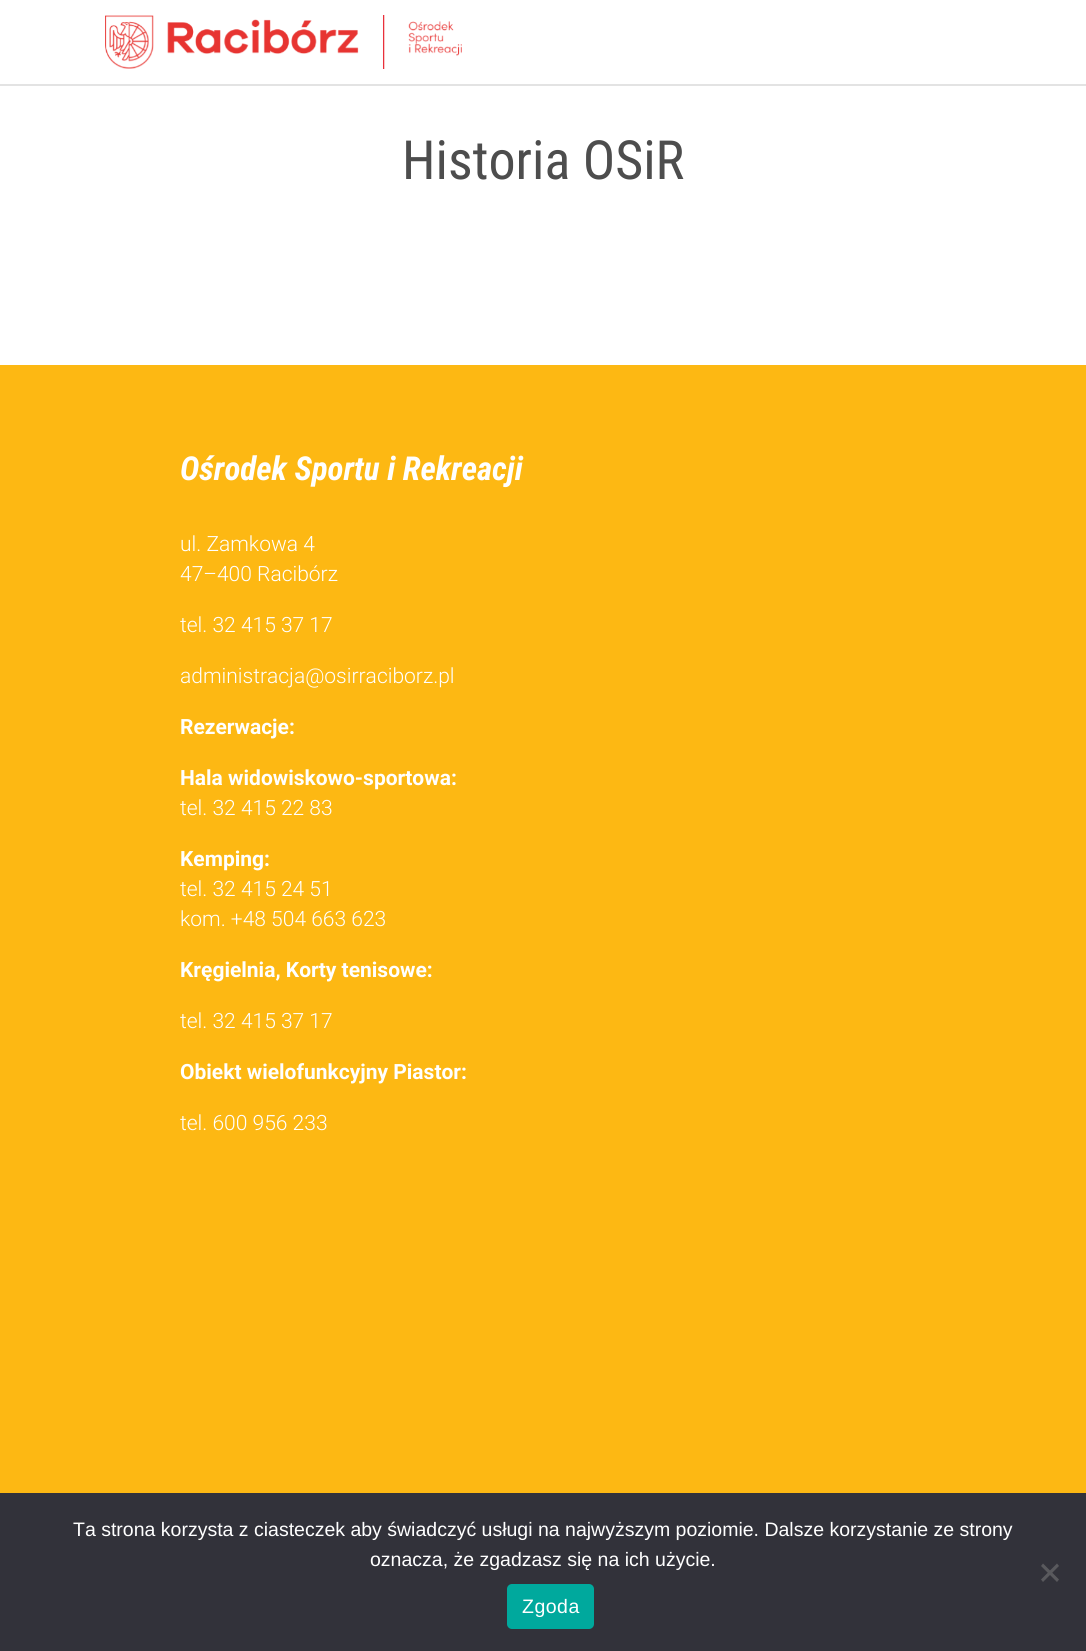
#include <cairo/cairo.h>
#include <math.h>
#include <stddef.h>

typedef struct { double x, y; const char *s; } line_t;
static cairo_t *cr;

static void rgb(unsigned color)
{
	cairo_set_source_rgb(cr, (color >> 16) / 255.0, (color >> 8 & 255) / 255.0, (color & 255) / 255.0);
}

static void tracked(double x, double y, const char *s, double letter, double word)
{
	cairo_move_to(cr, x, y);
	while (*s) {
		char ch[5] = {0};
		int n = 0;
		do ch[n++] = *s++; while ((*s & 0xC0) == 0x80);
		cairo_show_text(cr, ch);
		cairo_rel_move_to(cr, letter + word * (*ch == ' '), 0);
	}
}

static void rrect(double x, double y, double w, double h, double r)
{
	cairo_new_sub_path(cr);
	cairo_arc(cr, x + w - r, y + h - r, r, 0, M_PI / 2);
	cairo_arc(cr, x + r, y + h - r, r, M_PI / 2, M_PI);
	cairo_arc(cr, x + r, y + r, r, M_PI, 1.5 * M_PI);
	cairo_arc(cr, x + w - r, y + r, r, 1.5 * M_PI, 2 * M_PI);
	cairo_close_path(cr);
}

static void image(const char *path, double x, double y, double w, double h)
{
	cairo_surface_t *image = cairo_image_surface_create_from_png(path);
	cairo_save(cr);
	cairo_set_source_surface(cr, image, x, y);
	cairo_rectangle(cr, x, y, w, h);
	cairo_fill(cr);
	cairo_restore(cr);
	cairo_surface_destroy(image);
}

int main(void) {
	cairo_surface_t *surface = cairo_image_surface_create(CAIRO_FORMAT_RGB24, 1086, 1651);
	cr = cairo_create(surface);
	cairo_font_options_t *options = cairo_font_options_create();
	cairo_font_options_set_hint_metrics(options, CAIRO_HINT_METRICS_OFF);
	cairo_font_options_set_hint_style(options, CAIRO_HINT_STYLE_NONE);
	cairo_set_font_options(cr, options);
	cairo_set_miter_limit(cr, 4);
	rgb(0xffffff);
	cairo_paint(cr);
	rgb(0xe3e3e3);
	cairo_rectangle(cr, 0, 84, 1086, 2);
	cairo_fill(cr);
	image("img/1.png", 105, 15, 357, 54);
	rgb(0xfdb813);
	cairo_rectangle(cr, 0, 365, 1086, 1128);
	cairo_fill(cr);
	rgb(0x32323a);
	cairo_rectangle(cr, 0, 1493, 1086, 158);
	cairo_fill(cr);
	rgb(0x59595d);
	cairo_new_path(cr);
	cairo_move_to(cr, 1057, 1563.5);
	cairo_line_to(cr, 1059, 1566);
	cairo_line_to(cr, 1043, 1582);
	cairo_line_to(cr, 1041, 1579.5);
	cairo_close_path(cr);
	cairo_fill(cr);
	cairo_new_path(cr);
	cairo_move_to(cr, 1041, 1566);
	cairo_line_to(cr, 1043, 1563.5);
	cairo_line_to(cr, 1059, 1579.5);
	cairo_line_to(cr, 1057, 1582);
	cairo_close_path(cr);
	cairo_fill(cr);
	rgb(0x00a99d);
	rrect(507, 1584, 87, 45, 5);
	cairo_fill(cr);
	cairo_select_font_face(cr, "Roboto Condensed", CAIRO_FONT_SLANT_NORMAL, CAIRO_FONT_WEIGHT_NORMAL);
	cairo_set_font_size(cr, 54);
	rgb(0x4d4d4d);
	cairo_move_to(cr, 402, 179);
	cairo_show_text(cr, "Historia OSiR");
	cairo_select_font_face(cr, "Roboto Condensed", CAIRO_FONT_SLANT_ITALIC, CAIRO_FONT_WEIGHT_BOLD);
	cairo_set_font_size(cr, 33);
	rgb(0xffffff);
	cairo_move_to(cr, 180, 480);
	cairo_show_text(cr, "Ośrodek Sportu i Rekreacji");
	cairo_select_font_face(cr, "Roboto Light", CAIRO_FONT_SLANT_NORMAL, CAIRO_FONT_WEIGHT_NORMAL);
	cairo_set_font_size(cr, 21);
	{
		static const line_t items[] = {
			{180, 551, "ul. Zamkowa 4"},
			{180, 581, "47–400 Racibórz"},
			{180, 632, "tel. 32 415 37 17"},
			{180, 683, "administracja@osirraciborz.pl"},
		};
		for (size_t i = 0; i < sizeof items / sizeof *items; i++) {
			cairo_move_to(cr, items[i].x, items[i].y);
			cairo_show_text(cr, items[i].s);
		}
	}
	cairo_select_font_face(cr, "Roboto", CAIRO_FONT_SLANT_NORMAL, CAIRO_FONT_WEIGHT_BOLD);
	cairo_move_to(cr, 180, 734);
	cairo_show_text(cr, "Rezerwacje:");
	cairo_move_to(cr, 180, 785);
	cairo_show_text(cr, "Hala widowiskowo-sportowa:");
	cairo_select_font_face(cr, "Roboto Light", CAIRO_FONT_SLANT_NORMAL, CAIRO_FONT_WEIGHT_NORMAL);
	cairo_move_to(cr, 180, 815);
	cairo_show_text(cr, "tel. 32 415 22 83");
	cairo_select_font_face(cr, "Roboto", CAIRO_FONT_SLANT_NORMAL, CAIRO_FONT_WEIGHT_BOLD);
	cairo_move_to(cr, 180, 866);
	cairo_show_text(cr, "Kemping:");
	cairo_select_font_face(cr, "Roboto Light", CAIRO_FONT_SLANT_NORMAL, CAIRO_FONT_WEIGHT_NORMAL);
	cairo_move_to(cr, 180, 896);
	cairo_show_text(cr, "tel. 32 415 24 51");
	cairo_move_to(cr, 180, 926);
	cairo_show_text(cr, "kom. +48 504 663 623");
	cairo_select_font_face(cr, "Roboto", CAIRO_FONT_SLANT_NORMAL, CAIRO_FONT_WEIGHT_BOLD);
	cairo_move_to(cr, 180, 977);
	cairo_show_text(cr, "Kręgielnia, Korty tenisowe:");
	cairo_select_font_face(cr, "Roboto Light", CAIRO_FONT_SLANT_NORMAL, CAIRO_FONT_WEIGHT_NORMAL);
	cairo_move_to(cr, 180, 1028);
	cairo_show_text(cr, "tel. 32 415 37 17");
	cairo_select_font_face(cr, "Roboto", CAIRO_FONT_SLANT_NORMAL, CAIRO_FONT_WEIGHT_BOLD);
	cairo_move_to(cr, 180, 1079);
	cairo_show_text(cr, "Obiekt wielofunkcyjny Piastor:");
	cairo_select_font_face(cr, "Roboto Light", CAIRO_FONT_SLANT_NORMAL, CAIRO_FONT_WEIGHT_NORMAL);
	cairo_move_to(cr, 180, 1130);
	cairo_show_text(cr, "tel. 600 956 233");
	cairo_select_font_face(cr, "Liberation Sans", CAIRO_FONT_SLANT_NORMAL, CAIRO_FONT_WEIGHT_NORMAL);
	cairo_set_font_size(cr, 19.5);
	cairo_move_to(cr, 73, 1536);
	cairo_show_text(cr, "Ta strona korzysta z ciasteczek aby świadczyć usługi na najwyższym poziomie. Dalsze korzystanie ze strony");
	cairo_move_to(cr, 370, 1566);
	cairo_show_text(cr, "oznacza, że zgadzasz się na ich użycie.");
	tracked(522, 1613, "Zgoda", 0.5, 0);
	cairo_surface_write_to_png(surface, "page.png");
	cairo_font_options_destroy(options);
	cairo_destroy(cr);
	cairo_surface_destroy(surface);
	return 0;
}
